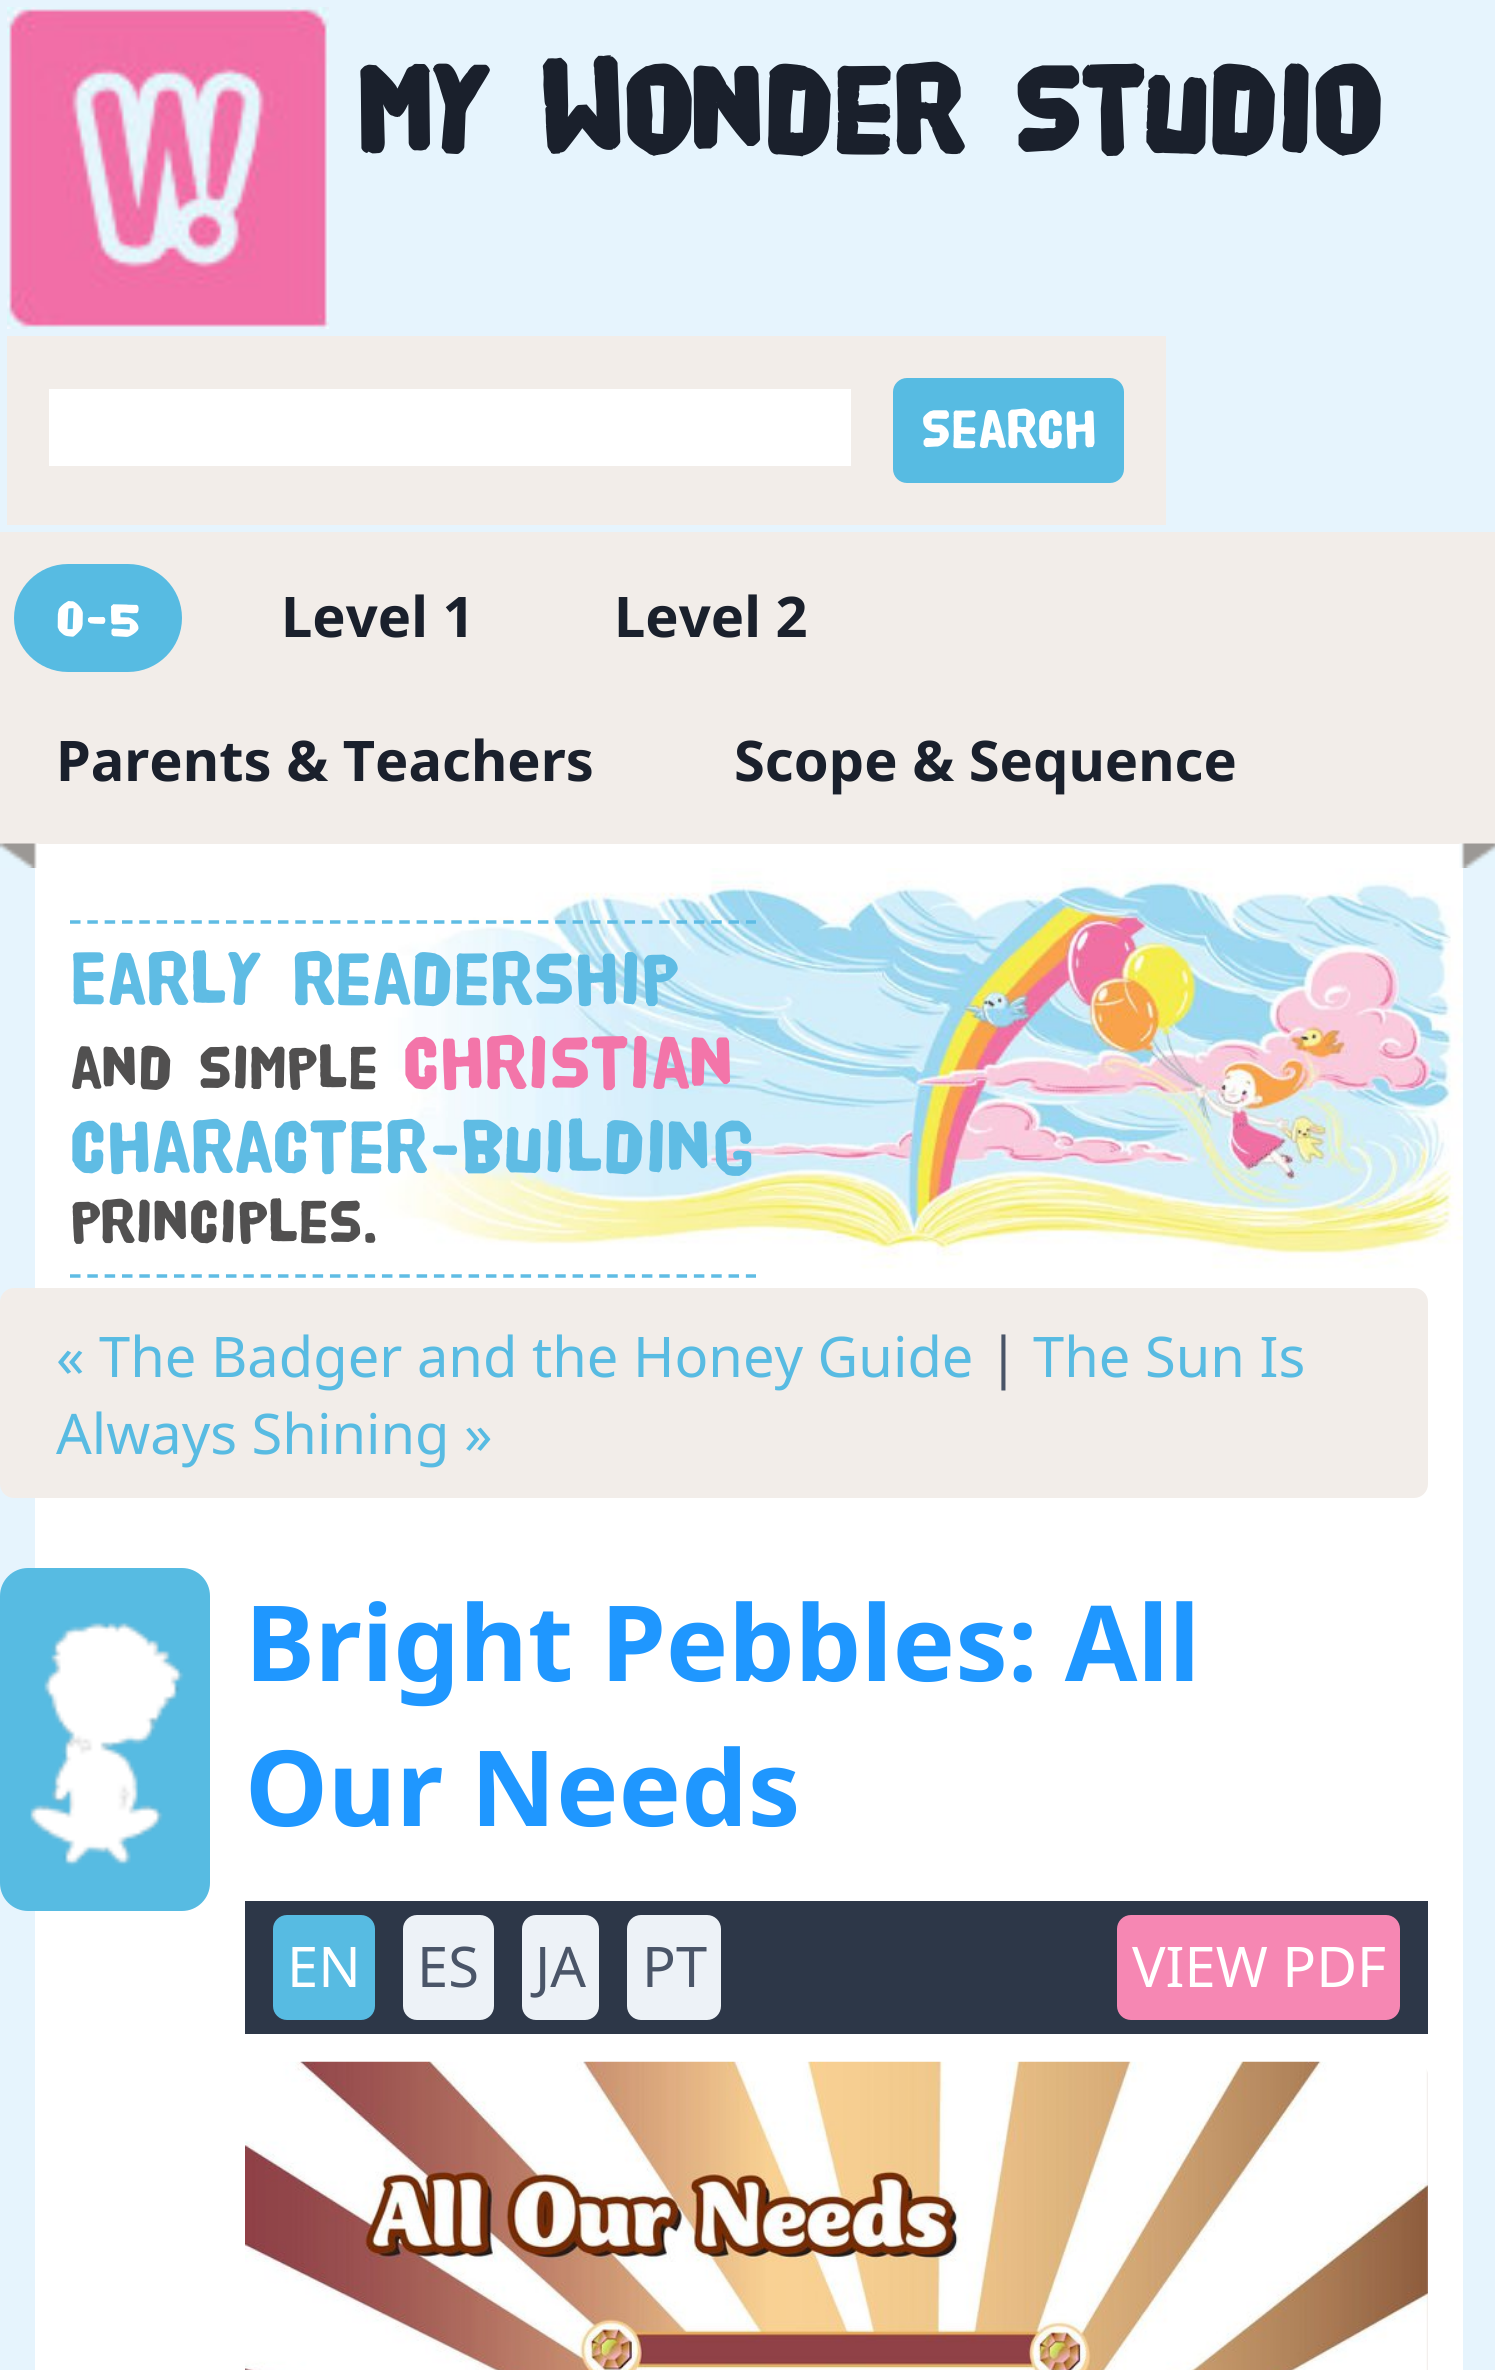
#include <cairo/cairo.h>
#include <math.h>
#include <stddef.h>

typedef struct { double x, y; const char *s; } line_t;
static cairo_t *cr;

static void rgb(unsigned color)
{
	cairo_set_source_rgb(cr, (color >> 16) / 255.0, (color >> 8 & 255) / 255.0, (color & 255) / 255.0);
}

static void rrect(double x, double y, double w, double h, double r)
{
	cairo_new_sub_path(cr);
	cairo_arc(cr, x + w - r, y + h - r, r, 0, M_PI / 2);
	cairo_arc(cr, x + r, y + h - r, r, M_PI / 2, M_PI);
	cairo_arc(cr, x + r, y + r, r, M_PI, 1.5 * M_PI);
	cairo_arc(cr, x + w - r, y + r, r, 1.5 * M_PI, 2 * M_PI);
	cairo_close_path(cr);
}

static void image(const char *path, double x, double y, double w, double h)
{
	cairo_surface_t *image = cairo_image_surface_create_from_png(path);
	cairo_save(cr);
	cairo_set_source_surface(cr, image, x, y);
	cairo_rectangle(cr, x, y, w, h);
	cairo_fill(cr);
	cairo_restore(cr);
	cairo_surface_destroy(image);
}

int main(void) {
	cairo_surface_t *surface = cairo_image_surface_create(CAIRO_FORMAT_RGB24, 1495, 2370);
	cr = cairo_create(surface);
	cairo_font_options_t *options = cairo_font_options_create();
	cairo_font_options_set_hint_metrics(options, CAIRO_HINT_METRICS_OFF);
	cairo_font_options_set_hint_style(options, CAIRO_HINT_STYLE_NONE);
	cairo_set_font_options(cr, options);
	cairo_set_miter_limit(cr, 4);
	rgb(0xe6f4fd);
	cairo_paint(cr);
	image("img/1.png", 7, 7, 322, 322);
	rgb(0xf2ede9);
	cairo_rectangle(cr, 7, 336, 1159, 189);
	cairo_fill(cr);
	rgb(0xffffff);
	cairo_rectangle(cr, 49, 389, 802, 77);
	cairo_fill(cr);
	rgb(0x57bbe2);
	rrect(893, 378, 231, 105, 14);
	cairo_fill(cr);
	rgb(0xf2ede9);
	cairo_rectangle(cr, 0, 532, 1495, 312);
	cairo_fill(cr);
	rgb(0x57bbe2);
	rrect(14, 564, 168, 108, 54);
	cairo_fill(cr);
	rgb(0xffffff);
	cairo_rectangle(cr, 38, 844, 1422, 24);
	cairo_fill(cr);
	image("img/2.png", 0, 843, 39, 25);
	image("img/3.png", 1459, 843, 36, 25);
	cairo_rectangle(cr, 35, 868, 1428, 1502);
	cairo_fill(cr);
	image("img/4.png", 72, 868, 1391, 401);
	cairo_new_path(cr);
	cairo_move_to(cr, 70, 922);
	cairo_line_to(cr, 756, 922);
	rgb(0x5fbce4);
	cairo_set_line_width(cr, 3.5);
	cairo_set_dash(cr, (double[]){10.5, 6.83}, 2, 0);
	cairo_stroke(cr);
	cairo_new_path(cr);
	cairo_move_to(cr, 70, 1276);
	cairo_line_to(cr, 756, 1276);
	cairo_stroke(cr);
	rgb(0xf2ede9);
	rrect(0, 1288, 1428, 210, 14);
	cairo_fill(cr);
	rgb(0x57bbe2);
	rrect(0, 1568, 210, 343, 28);
	cairo_fill(cr);
	image("img/5.png", 30, 1622, 154, 245);
	rgb(0x2d3748);
	cairo_rectangle(cr, 245, 1901, 1183, 133);
	cairo_fill(cr);
	rgb(0x57bbe2);
	rrect(273, 1915, 102, 105, 14);
	cairo_fill(cr);
	rgb(0xedf2f7);
	rrect(403, 1915, 91, 105, 14);
	cairo_fill(cr);
	rrect(522, 1915, 77, 105, 14);
	cairo_fill(cr);
	rrect(627, 1915, 94, 105, 14);
	cairo_fill(cr);
	rgb(0xf687b3);
	rrect(1117, 1915, 283, 105, 14);
	cairo_fill(cr);
	image("img/6.png", 245, 2061, 1183, 309);
	cairo_select_font_face(cr, "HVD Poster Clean", CAIRO_FONT_SLANT_NORMAL, CAIRO_FONT_WEIGHT_BOLD);
	cairo_set_font_size(cr, 126);
	rgb(0x1a202c);
	cairo_move_to(cr, 357, 154);
	cairo_show_text(cr, "My Wonder Studio");
	cairo_select_font_face(cr, "HVD Poster Clean", CAIRO_FONT_SLANT_NORMAL, CAIRO_FONT_WEIGHT_NORMAL);
	cairo_set_font_size(cr, 56);
	rgb(0xffffff);
	cairo_move_to(cr, 921, 448);
	cairo_show_text(cr, "Search");
	cairo_move_to(cr, 56, 637);
	cairo_show_text(cr, "0-5");
	cairo_select_font_face(cr, "Noto Sans", CAIRO_FONT_SLANT_NORMAL, CAIRO_FONT_WEIGHT_BOLD);
	rgb(0x1a202c);
	{
		static const line_t items[] = {
			{281, 637, "Level 1"},
			{614, 637, "Level 2"},
			{56, 781, "Parents & Teachers"},
			{734, 781, "Scope & Sequence"},
		};
		for (size_t i = 0; i < sizeof items / sizeof *items; i++) {
			cairo_move_to(cr, items[i].x, items[i].y);
			cairo_show_text(cr, items[i].s);
		}
	}
	cairo_select_font_face(cr, "HVD Poster Clean", CAIRO_FONT_SLANT_NORMAL, CAIRO_FONT_WEIGHT_NORMAL);
	cairo_set_font_size(cr, 77);
	rgb(0x5fbce4);
	cairo_move_to(cr, 70, 1005);
	cairo_show_text(cr, "Early readership");
	cairo_set_font_size(cr, 63);
	rgb(0x515050);
	cairo_move_to(cr, 70, 1089);
	cairo_show_text(cr, "and simple");
	cairo_set_font_size(cr, 77);
	rgb(0xf375a9);
	cairo_move_to(cr, 403, 1089);
	cairo_show_text(cr, "Christian");
	rgb(0x5fbce4);
	cairo_move_to(cr, 70, 1173);
	cairo_show_text(cr, "character-building");
	cairo_set_font_size(cr, 63);
	rgb(0x515050);
	cairo_move_to(cr, 70, 1243);
	cairo_show_text(cr, "principles.");
	cairo_select_font_face(cr, "Noto Sans", CAIRO_FONT_SLANT_NORMAL, CAIRO_FONT_WEIGHT_NORMAL);
	cairo_set_font_size(cr, 56);
	rgb(0x58bbe2);
	cairo_move_to(cr, 56, 1377);
	cairo_show_text(cr, "« The Badger and the Honey Guide");
	rgb(0x4a5568);
	cairo_move_to(cr, 988, 1377);
	cairo_show_text(cr, "|");
	rgb(0x58bbe2);
	cairo_move_to(cr, 1033, 1377);
	cairo_show_text(cr, "The Sun Is");
	cairo_move_to(cr, 56, 1454);
	cairo_show_text(cr, "Always Shining »");
	cairo_select_font_face(cr, "Noto Sans", CAIRO_FONT_SLANT_NORMAL, CAIRO_FONT_WEIGHT_BOLD);
	cairo_set_font_size(cr, 105);
	rgb(0x1f97ff);
	cairo_move_to(cr, 245, 1681);
	cairo_show_text(cr, "Bright Pebbles: All");
	cairo_move_to(cr, 245, 1826);
	cairo_show_text(cr, "Our Needs");
	cairo_select_font_face(cr, "Noto Sans", CAIRO_FONT_SLANT_NORMAL, CAIRO_FONT_WEIGHT_NORMAL);
	cairo_set_font_size(cr, 56);
	rgb(0xffffff);
	cairo_move_to(cr, 287, 1987);
	cairo_show_text(cr, "EN");
	rgb(0x4a5568);
	{
		static const line_t items[] = {
			{417, 1987, "ES"},
			{535, 1987, "JA"},
			{642, 1987, "PT"},
		};
		for (size_t i = 0; i < sizeof items / sizeof *items; i++) {
			cairo_move_to(cr, items[i].x, items[i].y);
			cairo_show_text(cr, items[i].s);
		}
	}
	rgb(0xffffff);
	cairo_move_to(cr, 1132, 1987);
	cairo_show_text(cr, "VIEW PDF");
	cairo_surface_write_to_png(surface, "page.png");
	cairo_font_options_destroy(options);
	cairo_destroy(cr);
	cairo_surface_destroy(surface);
	return 0;
}
